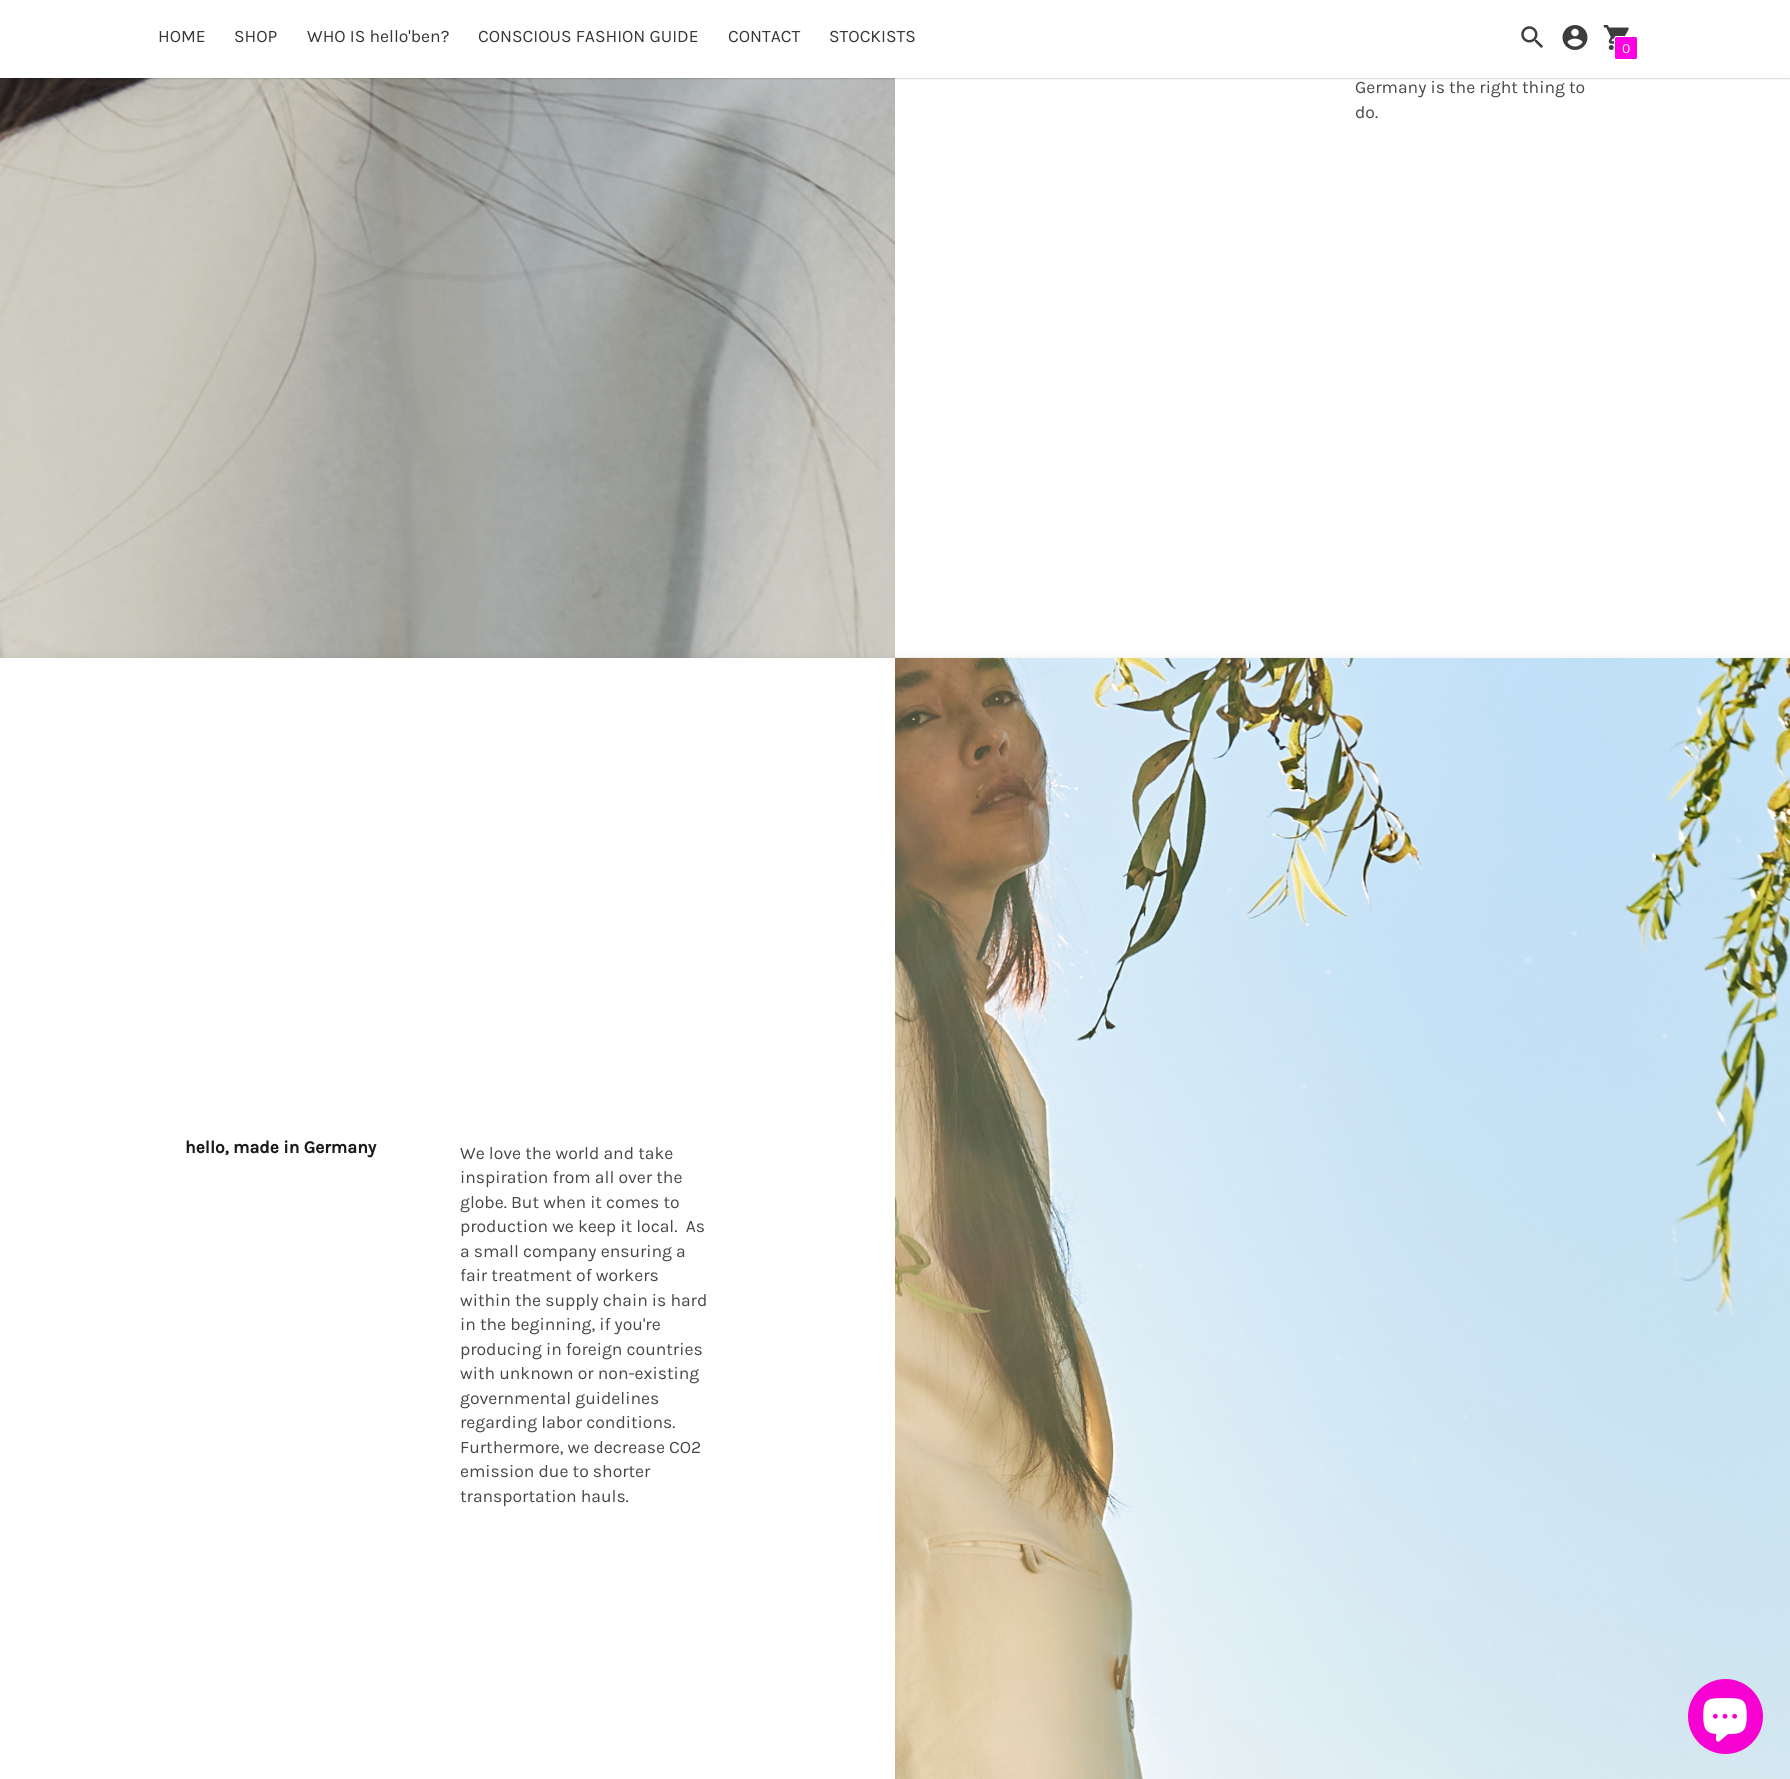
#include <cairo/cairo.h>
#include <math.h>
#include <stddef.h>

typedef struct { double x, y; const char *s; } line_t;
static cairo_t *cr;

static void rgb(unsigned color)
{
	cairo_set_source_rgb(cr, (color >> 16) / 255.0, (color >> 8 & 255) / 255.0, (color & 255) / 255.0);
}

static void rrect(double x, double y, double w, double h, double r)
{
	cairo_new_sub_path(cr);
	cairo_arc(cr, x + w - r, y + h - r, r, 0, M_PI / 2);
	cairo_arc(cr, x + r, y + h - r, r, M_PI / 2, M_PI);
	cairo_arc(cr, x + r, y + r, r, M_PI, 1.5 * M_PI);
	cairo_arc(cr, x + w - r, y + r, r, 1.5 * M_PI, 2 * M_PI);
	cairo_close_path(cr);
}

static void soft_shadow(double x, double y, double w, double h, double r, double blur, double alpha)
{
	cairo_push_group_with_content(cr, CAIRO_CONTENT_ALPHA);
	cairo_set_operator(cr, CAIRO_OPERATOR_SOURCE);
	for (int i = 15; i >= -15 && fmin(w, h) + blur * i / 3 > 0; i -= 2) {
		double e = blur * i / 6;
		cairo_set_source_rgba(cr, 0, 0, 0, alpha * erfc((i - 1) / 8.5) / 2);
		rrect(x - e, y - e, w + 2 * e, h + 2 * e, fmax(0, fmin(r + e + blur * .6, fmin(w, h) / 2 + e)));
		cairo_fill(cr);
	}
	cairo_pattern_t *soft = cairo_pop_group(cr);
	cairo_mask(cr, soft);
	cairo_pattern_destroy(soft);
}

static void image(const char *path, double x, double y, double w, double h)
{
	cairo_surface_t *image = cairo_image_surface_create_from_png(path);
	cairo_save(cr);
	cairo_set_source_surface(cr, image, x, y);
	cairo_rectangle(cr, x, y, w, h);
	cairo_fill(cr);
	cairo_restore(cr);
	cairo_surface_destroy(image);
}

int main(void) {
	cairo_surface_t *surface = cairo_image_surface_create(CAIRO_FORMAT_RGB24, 1790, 1779);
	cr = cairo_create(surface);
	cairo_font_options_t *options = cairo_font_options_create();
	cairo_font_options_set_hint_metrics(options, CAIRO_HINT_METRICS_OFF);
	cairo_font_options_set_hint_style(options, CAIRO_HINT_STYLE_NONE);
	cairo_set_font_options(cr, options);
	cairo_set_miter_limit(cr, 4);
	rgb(0xffffff);
	cairo_paint(cr);
	image("img/4.png", 0, 78, 895, 580);
	rgb(0x000000);
	soft_shadow(0, -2, 1790, 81, 0, 0.5, 0.15);
	rgb(0xffffff);
	cairo_rectangle(cr, 0, 0, 1790, 78);
	cairo_fill(cr);
	image("img/1.png", 1521, 26, 22, 22);
	image("img/2.png", 1562, 25, 26, 25);
	image("img/3.png", 1603, 25, 26, 25);
	rgb(0xff00e4);
	rrect(1614.5, 36.5, 23, 23, 2);
	cairo_fill_preserve(cr);
	rgb(0xffffff);
	cairo_set_line_width(cr, 1);
	cairo_stroke(cr);
	rgb(0x000000);
	soft_shadow(0, 658, 1790, 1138, 0, 5.5, 0.07);
	rgb(0xffffff);
	cairo_rectangle(cr, 0, 658, 895, 1121);
	cairo_fill(cr);
	image("img/5.png", 895, 657, 895, 1122);
	rgb(0xf700d2);
	cairo_arc(cr, 1725.5, 1716.5, 37.5, 0, 2 * M_PI);
	cairo_fill(cr);
	image("img/6.png", 1703, 1698, 44, 44);
	cairo_select_font_face(cr, "Karla", CAIRO_FONT_SLANT_NORMAL, CAIRO_FONT_WEIGHT_NORMAL);
	cairo_set_font_size(cr, 17.5);
	rgb(0x363636);
	{
		static const line_t items[] = {
			{158, 42, "HOME"},
			{234, 42, "SHOP"},
			{307, 42, "WHO IS hello'ben?"},
			{478, 42, "CONSCIOUS FASHION GUIDE"},
			{728, 42, "CONTACT"},
			{829, 42, "STOCKISTS"},
		};
		for (size_t i = 0; i < sizeof items / sizeof *items; i++) {
			cairo_move_to(cr, items[i].x, items[i].y);
			cairo_show_text(cr, items[i].s);
		}
	}
	cairo_set_font_size(cr, 14);
	rgb(0xffffff);
	cairo_move_to(cr, 1622, 53);
	cairo_show_text(cr, "0");
	cairo_set_font_size(cr, 17.5);
	rgb(0x474747);
	cairo_move_to(cr, 1355, 93);
	cairo_show_text(cr, "Germany is the right thing to");
	cairo_move_to(cr, 1355, 118);
	cairo_show_text(cr, "do.");
	cairo_select_font_face(cr, "Karla", CAIRO_FONT_SLANT_NORMAL, CAIRO_FONT_WEIGHT_BOLD);
	rgb(0x1a1a1a);
	cairo_move_to(cr, 185, 1153);
	cairo_show_text(cr, "hello, made in Germany");
	cairo_select_font_face(cr, "Karla", CAIRO_FONT_SLANT_NORMAL, CAIRO_FONT_WEIGHT_NORMAL);
	rgb(0x474747);
	{
		static const line_t items[] = {
			{460, 1159, "We love the world and take"},
			{460, 1183, "inspiration from all over the"},
			{460, 1208, "globe. But when it comes to"},
			{460, 1232, "production we keep it local.  As"},
			{460, 1257, "a small company ensuring a"},
			{460, 1281, "fair treatment of workers"},
			{460, 1306, "within the supply chain is hard"},
			{460, 1330, "in the beginning, if you're"},
			{460, 1355, "producing in foreign countries"},
			{460, 1379, "with unknown or non-existing"},
			{460, 1404, "governmental guidelines"},
			{460, 1428, "regarding labor conditions."},
			{460, 1453, "Furthermore, we decrease CO2"},
			{460, 1477, "emission due to shorter"},
			{460, 1502, "transportation hauls."},
		};
		for (size_t i = 0; i < sizeof items / sizeof *items; i++) {
			cairo_move_to(cr, items[i].x, items[i].y);
			cairo_show_text(cr, items[i].s);
		}
	}
	cairo_surface_write_to_png(surface, "page.png");
	cairo_font_options_destroy(options);
	cairo_destroy(cr);
	cairo_surface_destroy(surface);
	return 0;
}
